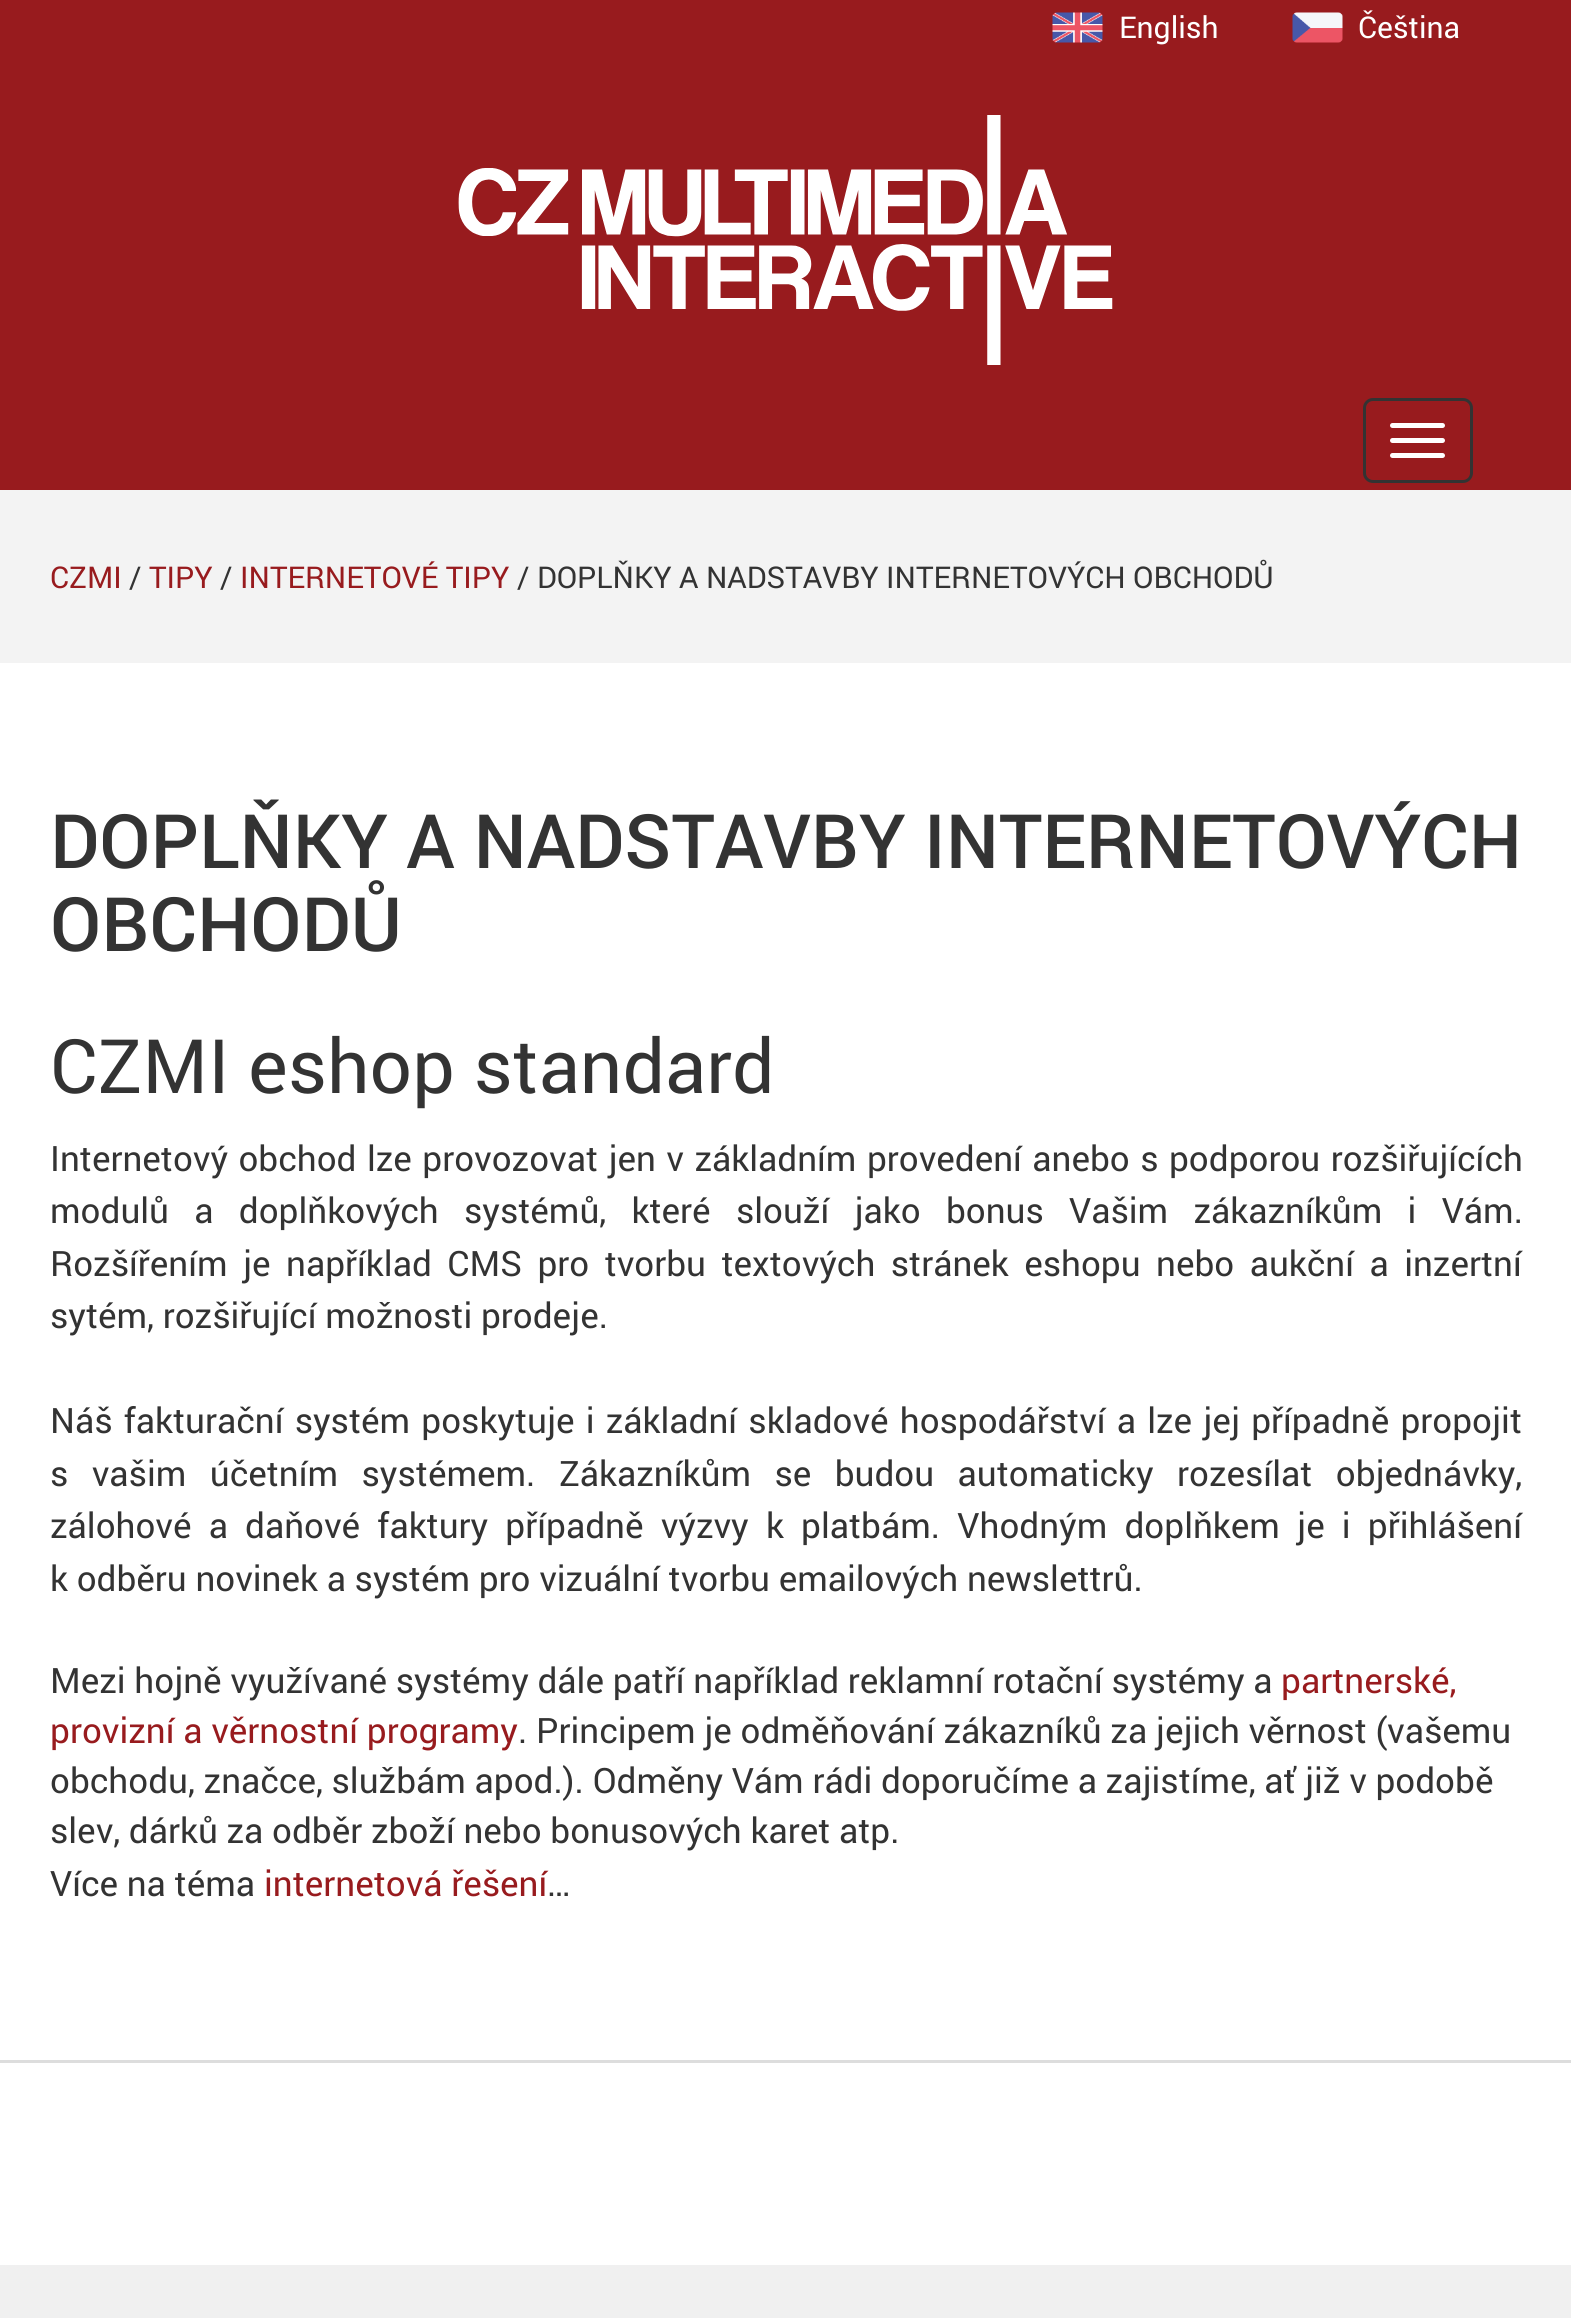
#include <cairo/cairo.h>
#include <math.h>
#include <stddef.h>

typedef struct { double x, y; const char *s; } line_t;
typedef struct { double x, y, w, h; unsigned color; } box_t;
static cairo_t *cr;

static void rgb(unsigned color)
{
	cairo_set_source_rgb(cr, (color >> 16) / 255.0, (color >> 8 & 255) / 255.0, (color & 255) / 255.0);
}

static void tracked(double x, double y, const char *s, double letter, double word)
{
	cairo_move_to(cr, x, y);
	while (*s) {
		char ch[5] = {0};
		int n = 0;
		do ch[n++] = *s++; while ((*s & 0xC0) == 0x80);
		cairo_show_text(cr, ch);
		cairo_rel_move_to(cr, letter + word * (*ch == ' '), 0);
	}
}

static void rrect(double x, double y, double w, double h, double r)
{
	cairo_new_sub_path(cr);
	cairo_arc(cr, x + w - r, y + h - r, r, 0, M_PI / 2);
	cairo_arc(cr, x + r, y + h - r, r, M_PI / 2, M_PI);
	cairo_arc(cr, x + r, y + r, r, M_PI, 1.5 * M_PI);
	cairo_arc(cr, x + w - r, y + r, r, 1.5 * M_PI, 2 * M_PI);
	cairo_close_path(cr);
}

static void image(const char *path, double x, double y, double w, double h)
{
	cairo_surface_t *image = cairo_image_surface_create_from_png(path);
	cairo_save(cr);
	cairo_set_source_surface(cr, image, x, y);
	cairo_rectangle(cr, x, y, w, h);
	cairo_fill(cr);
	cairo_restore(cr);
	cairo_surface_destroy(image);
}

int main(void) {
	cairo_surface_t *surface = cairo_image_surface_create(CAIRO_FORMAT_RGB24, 1571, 2318);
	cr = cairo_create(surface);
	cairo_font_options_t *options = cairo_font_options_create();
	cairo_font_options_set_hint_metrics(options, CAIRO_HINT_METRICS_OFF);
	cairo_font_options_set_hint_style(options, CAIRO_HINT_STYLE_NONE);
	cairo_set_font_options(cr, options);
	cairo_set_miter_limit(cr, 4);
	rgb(0xffffff);
	cairo_paint(cr);
	rgb(0x981b1e);
	cairo_rectangle(cr, 0, 0, 1571, 490);
	cairo_fill(cr);
	image("img/1.png", 1052, 12, 51, 31);
	image("img/2.png", 1292, 12, 51, 31);
	image("img/3.png", 458, 115, 655, 250);
	rrect(1364.5, 399.5, 107, 82, 8.5);
	rgb(0x333333);
	cairo_set_line_width(cr, 3);
	cairo_stroke(cr);
	rgb(0xffffff);
	rrect(1390, 423, 55, 5, 2.5);
	cairo_fill(cr);
	rrect(1390, 438, 55, 5, 2.5);
	cairo_fill(cr);
	rrect(1390, 453, 55, 5, 2.5);
	cairo_fill(cr);
	{
		static const box_t items[] = {
			{0, 490, 1571, 173, 0xf3f3f3},
			{0, 2060, 1571, 3, 0xdddddd},
			{0, 2265, 1571, 53, 0xf0f0f0},
		};
		for (size_t i = 0; i < sizeof items / sizeof *items; i++) {
			rgb(items[i].color);
			cairo_rectangle(cr, items[i].x, items[i].y, items[i].w, items[i].h);
			cairo_fill(cr);
		}
	}
	cairo_select_font_face(cr, "Roboto", CAIRO_FONT_SLANT_NORMAL, CAIRO_FONT_WEIGHT_NORMAL);
	cairo_set_font_size(cr, 30);
	rgb(0xffffff);
	cairo_move_to(cr, 1119, 38);
	cairo_show_text(cr, "English");
	cairo_move_to(cr, 1358, 38);
	cairo_show_text(cr, "Čeština");
	rgb(0x981b1e);
	cairo_move_to(cr, 50, 588);
	cairo_show_text(cr, "CZMI");
	rgb(0x333333);
	cairo_move_to(cr, 129, 588);
	cairo_show_text(cr, "/");
	rgb(0x981b1e);
	cairo_move_to(cr, 149, 588);
	cairo_show_text(cr, "TIPY");
	rgb(0x333333);
	cairo_move_to(cr, 220, 588);
	cairo_show_text(cr, "/");
	rgb(0x981b1e);
	cairo_move_to(cr, 240, 588);
	cairo_show_text(cr, "INTERNETOVÉ TIPY");
	rgb(0x333333);
	cairo_move_to(cr, 517, 588);
	cairo_show_text(cr, "/ DOPLŇKY A NADSTAVBY INTERNETOVÝCH OBCHODŮ");
	cairo_select_font_face(cr, "Roboto Medium", CAIRO_FONT_SLANT_NORMAL, CAIRO_FONT_WEIGHT_NORMAL);
	cairo_set_font_size(cr, 75);
	cairo_move_to(cr, 50, 868);
	cairo_show_text(cr, "DOPLŇKY A NADSTAVBY INTERNETOVÝCH");
	cairo_move_to(cr, 50, 951);
	cairo_show_text(cr, "OBCHODŮ");
	cairo_select_font_face(cr, "Roboto", CAIRO_FONT_SLANT_NORMAL, CAIRO_FONT_WEIGHT_NORMAL);
	cairo_move_to(cr, 50, 1093);
	cairo_show_text(cr, "CZMI eshop standard");
	cairo_set_font_size(cr, 35);
	tracked(50, 1171, "Internetový obchod lze provozovat jen v základním provedení anebo s podporou rozšiřujících", 0, 1.75);
	tracked(50, 1223, "modulů a doplňkových systémů, které slouží jako bonus Vašim zákazníkům i Vám.", 0, 16.6);
	tracked(50, 1276, "Rozšířením je například CMS pro tvorbu textových stránek eshopu nebo aukční a inzertní", 0, 6.75);
	cairo_move_to(cr, 50, 1328);
	cairo_show_text(cr, "sytém, rozšiřující možnosti prodeje.");
	tracked(50, 1433, "Náš fakturační systém poskytuje i základní skladové hospodářství a lze jej případně propojit", 0, 2.5);
	tracked(50, 1486, "s vašim účetním systémem. Zákazníkům se budou automaticky rozesílat objednávky,", 0, 14.75);
	tracked(50, 1538, "zálohové a daňové faktury případně výzvy k platbám. Vhodným doplňkem je i přihlášení", 0, 8.5);
	cairo_move_to(cr, 50, 1591);
	cairo_show_text(cr, "k odběru novinek a systém pro vizuální tvorbu emailových newslettrů.");
	cairo_move_to(cr, 50, 1693);
	cairo_show_text(cr, "Mezi hojně využívané systémy dále patří například reklamní rotační systémy a");
	rgb(0x981b1e);
	cairo_move_to(cr, 1281, 1693);
	cairo_show_text(cr, "partnerské,");
	cairo_move_to(cr, 50, 1743);
	cairo_show_text(cr, "provizní a věrnostní programy");
	rgb(0x333333);
	{
		static const line_t items[] = {
			{518, 1743, ". Principem je odměňování zákazníků za jejich věrnost (vašemu"},
			{50, 1793, "obchodu, značce, službám apod.). Odměny Vám rádi doporučíme a zajistíme, ať již v podobě"},
			{50, 1843, "slev, dárků za odběr zboží nebo bonusových karet atp."},
			{50, 1896, "Více na téma"},
		};
		for (size_t i = 0; i < sizeof items / sizeof *items; i++) {
			cairo_move_to(cr, items[i].x, items[i].y);
			cairo_show_text(cr, items[i].s);
		}
	}
	rgb(0x981b1e);
	cairo_move_to(cr, 264, 1896);
	cairo_show_text(cr, "internetová řešení");
	rgb(0x333333);
	cairo_move_to(cr, 547, 1896);
	cairo_show_text(cr, "…");
	cairo_surface_write_to_png(surface, "page.png");
	cairo_font_options_destroy(options);
	cairo_destroy(cr);
	cairo_surface_destroy(surface);
	return 0;
}
